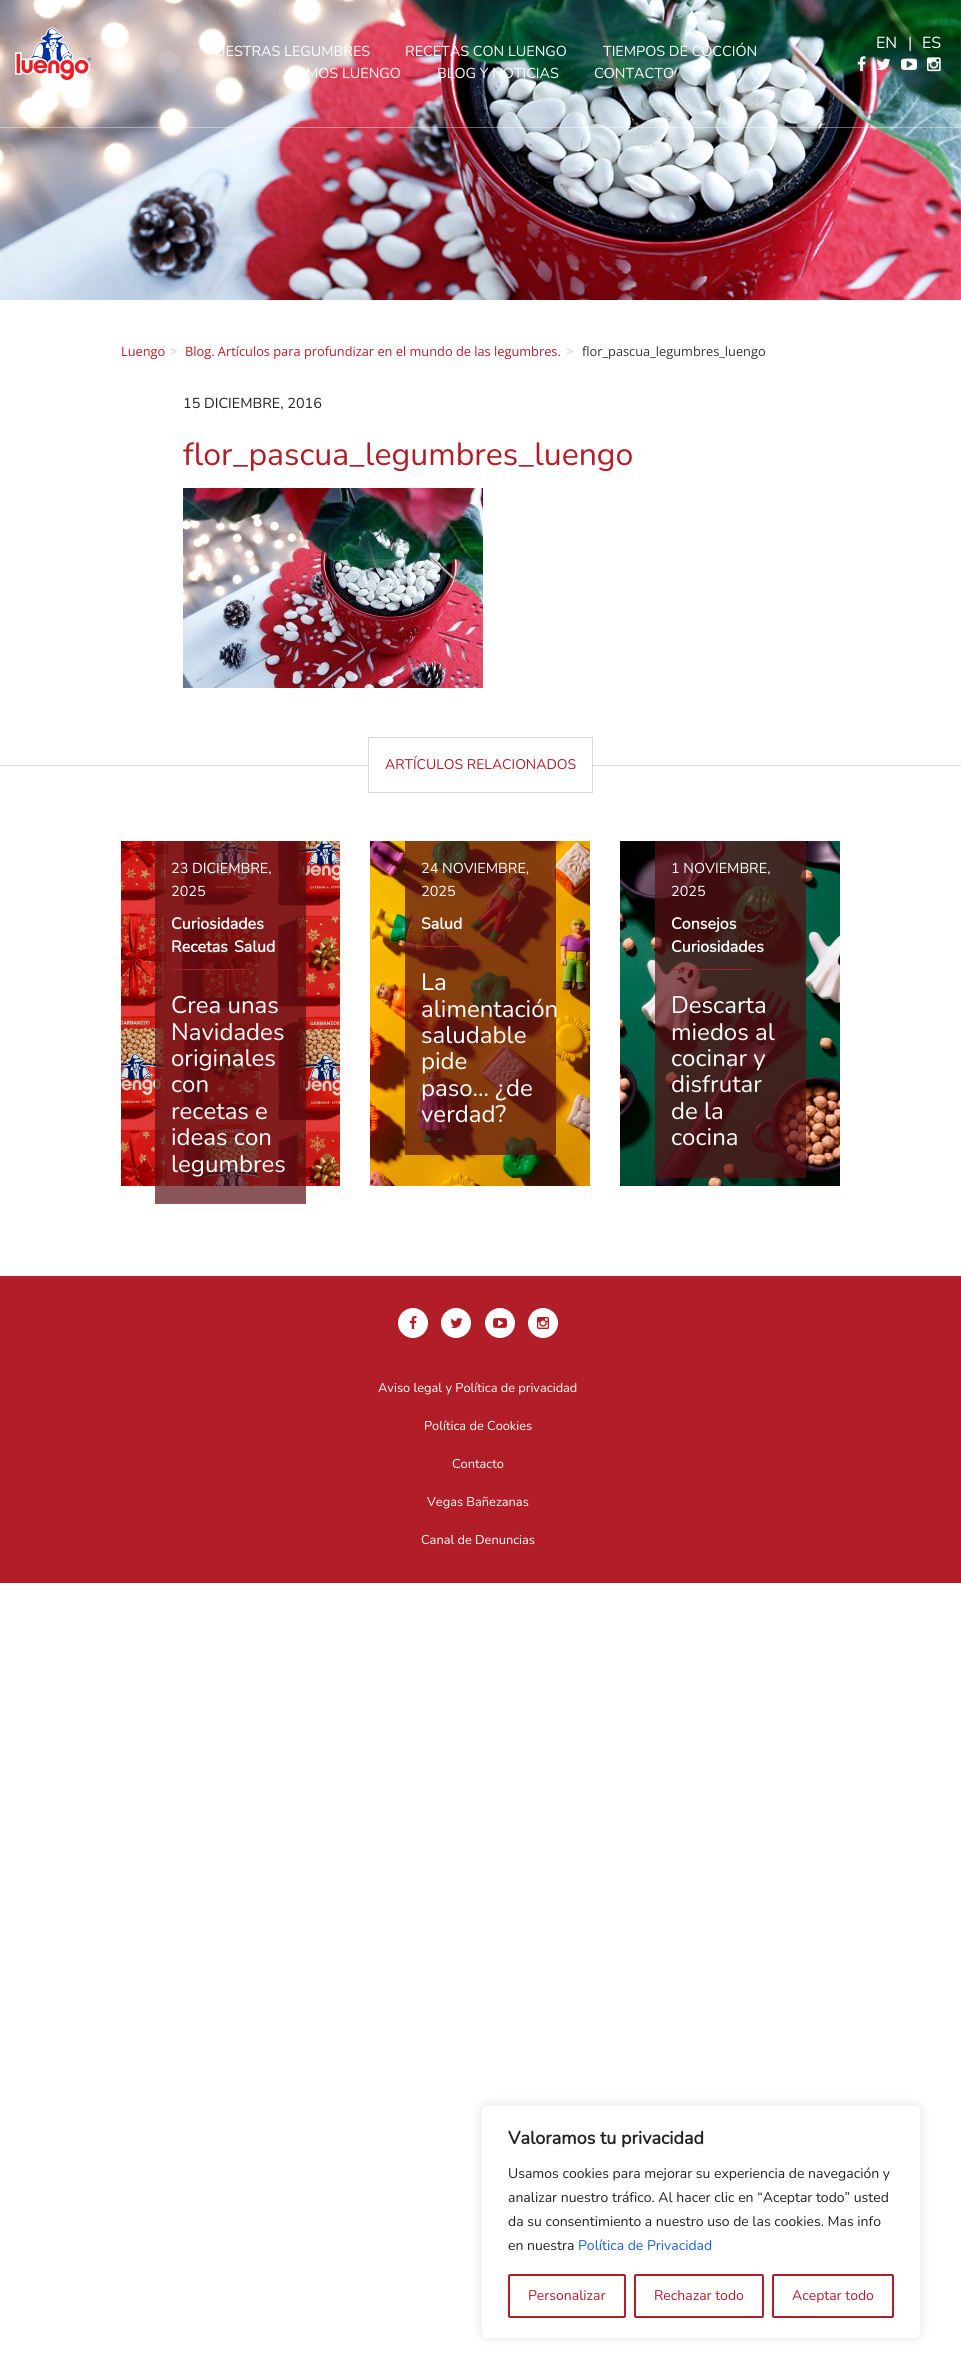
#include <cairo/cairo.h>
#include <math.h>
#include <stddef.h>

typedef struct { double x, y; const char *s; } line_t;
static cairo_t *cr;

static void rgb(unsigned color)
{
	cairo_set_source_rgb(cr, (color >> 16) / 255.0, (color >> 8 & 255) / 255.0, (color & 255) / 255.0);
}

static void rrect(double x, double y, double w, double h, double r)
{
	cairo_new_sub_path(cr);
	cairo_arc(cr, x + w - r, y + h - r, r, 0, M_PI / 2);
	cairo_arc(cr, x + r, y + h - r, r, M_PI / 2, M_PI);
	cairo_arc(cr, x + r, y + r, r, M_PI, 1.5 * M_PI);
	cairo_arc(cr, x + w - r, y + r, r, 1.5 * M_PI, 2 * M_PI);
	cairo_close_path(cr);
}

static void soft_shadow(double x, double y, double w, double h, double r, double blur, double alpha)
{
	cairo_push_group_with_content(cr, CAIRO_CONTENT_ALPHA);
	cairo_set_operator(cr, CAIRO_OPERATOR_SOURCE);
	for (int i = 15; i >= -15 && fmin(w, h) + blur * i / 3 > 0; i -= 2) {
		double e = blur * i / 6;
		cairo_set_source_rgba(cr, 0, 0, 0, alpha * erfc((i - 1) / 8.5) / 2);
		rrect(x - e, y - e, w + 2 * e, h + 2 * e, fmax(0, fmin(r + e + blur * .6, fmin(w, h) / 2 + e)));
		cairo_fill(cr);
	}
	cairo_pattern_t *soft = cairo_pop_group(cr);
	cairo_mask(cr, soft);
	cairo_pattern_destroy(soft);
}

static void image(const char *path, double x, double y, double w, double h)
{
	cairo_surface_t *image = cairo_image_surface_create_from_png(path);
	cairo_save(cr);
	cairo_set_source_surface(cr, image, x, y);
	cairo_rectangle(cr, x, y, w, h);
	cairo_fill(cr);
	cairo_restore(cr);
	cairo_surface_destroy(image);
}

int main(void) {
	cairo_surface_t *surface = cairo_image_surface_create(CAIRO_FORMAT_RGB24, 961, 2379);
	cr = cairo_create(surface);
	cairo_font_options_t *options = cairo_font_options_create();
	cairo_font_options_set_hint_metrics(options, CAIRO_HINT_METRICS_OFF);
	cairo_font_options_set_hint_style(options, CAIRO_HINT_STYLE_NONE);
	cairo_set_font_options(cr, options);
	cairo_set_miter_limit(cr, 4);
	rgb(0xffffff);
	cairo_paint(cr);
	image("img/6.png", 0, 0, 961, 300);
	cairo_set_source_rgba(cr, 1, 1, 1, 0.4);
	cairo_rectangle(cr, 0, 127, 961, 1);
	cairo_fill(cr);
	image("img/1.png", 15, 27, 77, 53);
	image("img/2.png", 857, 56, 9, 16);
	image("img/3.png", 876, 58, 15, 12);
	image("img/4.png", 901, 58, 16, 12);
	image("img/5.png", 927, 57, 14, 15);
	image("img/7.png", 183, 488, 300, 200);
	rgb(0xd9d9d9);
	cairo_rectangle(cr, 0, 765, 961, 1);
	cairo_fill(cr);
	rgb(0xffffff);
	cairo_rectangle(cr, 369, 765, 223, 1);
	cairo_fill(cr);
	cairo_rectangle(cr, 368.5, 737.5, 224, 55);
	rgb(0xd9d9d9);
	cairo_set_line_width(cr, 1);
	cairo_stroke(cr);
	image("img/8.png", 121, 841, 219, 345);
	cairo_set_source_rgba(cr, 0.357, 0.059, 0.078, 0.7);
	cairo_rectangle(cr, 155, 841, 151, 363);
	cairo_fill(cr);
	rgb(0xb21e27);
	cairo_rectangle(cr, 171, 969, 80, 1);
	cairo_fill(cr);
	image("img/9.png", 370, 841, 220, 345);
	cairo_set_source_rgba(cr, 0.357, 0.059, 0.078, 0.7);
	cairo_rectangle(cr, 405, 841, 151, 314);
	cairo_fill(cr);
	rgb(0xb21e27);
	cairo_rectangle(cr, 421, 946, 80, 1);
	cairo_fill(cr);
	image("img/10.png", 620, 841, 220, 345);
	cairo_set_source_rgba(cr, 0.357, 0.059, 0.078, 0.7);
	cairo_rectangle(cr, 655, 841, 151, 337);
	cairo_fill(cr);
	rgb(0xb21e27);
	cairo_rectangle(cr, 671, 969, 80, 1);
	cairo_fill(cr);
	cairo_rectangle(cr, 0, 1276, 961, 307);
	cairo_fill(cr);
	rgb(0xffffff);
	cairo_arc(cr, 413, 1323, 15, 0, 2 * M_PI);
	cairo_fill(cr);
	image("img/11.png", 409, 1316, 8, 13);
	cairo_arc(cr, 456, 1323, 15, 0, 2 * M_PI);
	cairo_fill(cr);
	image("img/12.png", 450, 1318, 13, 10);
	cairo_arc(cr, 500, 1323, 15, 0, 2 * M_PI);
	cairo_fill(cr);
	image("img/13.png", 493, 1318, 14, 10);
	cairo_arc(cr, 543, 1323, 15, 0, 2 * M_PI);
	cairo_fill(cr);
	image("img/14.png", 537, 1317, 12, 12);
	rgb(0xacabab);
	soft_shadow(481, 2104, 440, 234, 6, 5, 0.3);
	rgb(0xffffff);
	rrect(481.5, 2105.5, 439, 233, 5.5);
	cairo_fill_preserve(cr);
	rgb(0xf4f4f4);
	cairo_stroke(cr);
	rrect(509, 2275, 116, 42, 1);
	rgb(0xb21e27);
	cairo_set_line_width(cr, 2);
	cairo_stroke(cr);
	rrect(635, 2275, 128, 42, 1);
	cairo_stroke(cr);
	rrect(773, 2275, 120, 42, 1);
	cairo_stroke(cr);
	cairo_select_font_face(cr, "Nunito ExtraLight", CAIRO_FONT_SLANT_NORMAL, CAIRO_FONT_WEIGHT_NORMAL);
	cairo_set_font_size(cr, 14.4);
	rgb(0xffffff);
	{
		static const line_t items[] = {
			{215, 56, "UESTRAS LEGUMBRES"},
			{405, 56, "RECETAS CON LUENGO"},
			{603, 56, "TIEMPOS DE COCCIÓN"},
			{306, 78, "MOS LUENGO"},
			{437, 78, "BLOG Y NOTICIAS"},
			{594, 78, "CONTACTO"},
		};
		for (size_t i = 0; i < sizeof items / sizeof *items; i++) {
			cairo_move_to(cr, items[i].x, items[i].y);
			cairo_show_text(cr, items[i].s);
		}
	}
	cairo_set_font_size(cr, 16);
	{
		static const line_t items[] = {
			{876, 48, "EN"},
			{908, 48, "|"},
			{922, 48, "ES"},
		};
		for (size_t i = 0; i < sizeof items / sizeof *items; i++) {
			cairo_move_to(cr, items[i].x, items[i].y);
			cairo_show_text(cr, items[i].s);
		}
	}
	cairo_select_font_face(cr, "Open Sans", CAIRO_FONT_SLANT_NORMAL, CAIRO_FONT_WEIGHT_NORMAL);
	cairo_set_font_size(cr, 12.8);
	rgb(0xb21e27);
	cairo_move_to(cr, 121, 356);
	cairo_show_text(cr, "Luengo");
	rgb(0xcccccc);
	cairo_move_to(cr, 170, 356);
	cairo_show_text(cr, ">");
	rgb(0xb21e27);
	cairo_move_to(cr, 185, 356);
	cairo_show_text(cr, "Blog. Artículos para profundizar en el mundo de las legumbres.");
	rgb(0xcccccc);
	cairo_move_to(cr, 566, 356);
	cairo_show_text(cr, ">");
	rgb(0x333333);
	cairo_move_to(cr, 582, 356);
	cairo_show_text(cr, "flor_pascua_legumbres_luengo");
	cairo_select_font_face(cr, "Nunito ExtraLight", CAIRO_FONT_SLANT_NORMAL, CAIRO_FONT_WEIGHT_NORMAL);
	cairo_set_font_size(cr, 14.4);
	rgb(0x222222);
	cairo_move_to(cr, 183, 408);
	cairo_show_text(cr, "15 DICIEMBRE, 2016");
	cairo_set_font_size(cr, 32);
	rgb(0xb21e27);
	cairo_move_to(cr, 183, 465);
	cairo_show_text(cr, "flor_pascua_legumbres_luengo");
	cairo_set_font_size(cr, 14);
	cairo_move_to(cr, 385, 769);
	cairo_show_text(cr, "ARTÍCULOS RELACIONADOS");
	cairo_set_font_size(cr, 14.4);
	rgb(0xffffff);
	cairo_move_to(cr, 171, 873);
	cairo_show_text(cr, "23 DICIEMBRE,");
	cairo_move_to(cr, 171, 896);
	cairo_show_text(cr, "2025");
	cairo_select_font_face(cr, "Nunito", CAIRO_FONT_SLANT_NORMAL, CAIRO_FONT_WEIGHT_BOLD);
	cairo_set_font_size(cr, 16);
	cairo_move_to(cr, 171, 929);
	cairo_show_text(cr, "Curiosidades");
	cairo_select_font_face(cr, "Nunito ExtraLight", CAIRO_FONT_SLANT_NORMAL, CAIRO_FONT_WEIGHT_NORMAL);
	cairo_set_font_size(cr, 14);
	rgb(0x333333);
	cairo_move_to(cr, 264, 929);
	cairo_show_text(cr, ",");
	cairo_select_font_face(cr, "Nunito", CAIRO_FONT_SLANT_NORMAL, CAIRO_FONT_WEIGHT_BOLD);
	cairo_set_font_size(cr, 16);
	rgb(0xffffff);
	cairo_move_to(cr, 171, 952);
	cairo_show_text(cr, "Recetas");
	cairo_select_font_face(cr, "Nunito ExtraLight", CAIRO_FONT_SLANT_NORMAL, CAIRO_FONT_WEIGHT_NORMAL);
	cairo_set_font_size(cr, 14);
	rgb(0x333333);
	cairo_move_to(cr, 228, 952);
	cairo_show_text(cr, ",");
	cairo_select_font_face(cr, "Nunito", CAIRO_FONT_SLANT_NORMAL, CAIRO_FONT_WEIGHT_BOLD);
	cairo_set_font_size(cr, 16);
	rgb(0xffffff);
	cairo_move_to(cr, 234, 952);
	cairo_show_text(cr, "Salud");
	cairo_select_font_face(cr, "Nunito ExtraLight", CAIRO_FONT_SLANT_NORMAL, CAIRO_FONT_WEIGHT_NORMAL);
	cairo_set_font_size(cr, 24);
	{
		static const line_t items[] = {
			{171, 1013, "Crea unas"},
			{171, 1040, "Navidades"},
			{171, 1066, "originales"},
			{171, 1092, "con"},
			{171, 1119, "recetas e"},
			{171, 1145, "ideas con"},
			{171, 1172, "legumbres"},
		};
		for (size_t i = 0; i < sizeof items / sizeof *items; i++) {
			cairo_move_to(cr, items[i].x, items[i].y);
			cairo_show_text(cr, items[i].s);
		}
	}
	cairo_set_font_size(cr, 14.4);
	cairo_move_to(cr, 421, 873);
	cairo_show_text(cr, "24 NOVIEMBRE,");
	cairo_move_to(cr, 421, 896);
	cairo_show_text(cr, "2025");
	cairo_select_font_face(cr, "Nunito", CAIRO_FONT_SLANT_NORMAL, CAIRO_FONT_WEIGHT_BOLD);
	cairo_set_font_size(cr, 16);
	cairo_move_to(cr, 421, 929);
	cairo_show_text(cr, "Salud");
	cairo_select_font_face(cr, "Nunito ExtraLight", CAIRO_FONT_SLANT_NORMAL, CAIRO_FONT_WEIGHT_NORMAL);
	cairo_set_font_size(cr, 24);
	{
		static const line_t items[] = {
			{421, 990, "La"},
			{421, 1017, "alimentación"},
			{421, 1043, "saludable"},
			{421, 1069, "pide"},
			{421, 1096, "paso… ¿de"},
			{421, 1122, "verdad?"},
		};
		for (size_t i = 0; i < sizeof items / sizeof *items; i++) {
			cairo_move_to(cr, items[i].x, items[i].y);
			cairo_show_text(cr, items[i].s);
		}
	}
	cairo_set_font_size(cr, 14.4);
	cairo_move_to(cr, 671, 873);
	cairo_show_text(cr, "1 NOVIEMBRE,");
	cairo_move_to(cr, 671, 896);
	cairo_show_text(cr, "2025");
	cairo_select_font_face(cr, "Nunito", CAIRO_FONT_SLANT_NORMAL, CAIRO_FONT_WEIGHT_BOLD);
	cairo_set_font_size(cr, 16);
	cairo_move_to(cr, 671, 929);
	cairo_show_text(cr, "Consejos");
	cairo_move_to(cr, 671, 952);
	cairo_show_text(cr, "Curiosidades");
	cairo_select_font_face(cr, "Nunito ExtraLight", CAIRO_FONT_SLANT_NORMAL, CAIRO_FONT_WEIGHT_NORMAL);
	cairo_set_font_size(cr, 24);
	{
		static const line_t items[] = {
			{671, 1013, "Descarta"},
			{671, 1040, "miedos al"},
			{671, 1066, "cocinar y"},
			{671, 1092, "disfrutar"},
			{671, 1119, "de la"},
			{671, 1145, "cocina"},
		};
		for (size_t i = 0; i < sizeof items / sizeof *items; i++) {
			cairo_move_to(cr, items[i].x, items[i].y);
			cairo_show_text(cr, items[i].s);
		}
	}
	cairo_set_font_size(cr, 12.8);
	{
		static const line_t items[] = {
			{378, 1392, "Aviso legal y Política de privacidad"},
			{424, 1430, "Política de Cookies"},
			{452, 1468, "Contacto"},
			{427, 1506, "Vegas Bañezanas"},
			{421, 1544, "Canal de Denuncias"},
		};
		for (size_t i = 0; i < sizeof items / sizeof *items; i++) {
			cairo_move_to(cr, items[i].x, items[i].y);
			cairo_show_text(cr, items[i].s);
		}
	}
	cairo_select_font_face(cr, "Nunito", CAIRO_FONT_SLANT_NORMAL, CAIRO_FONT_WEIGHT_BOLD);
	cairo_set_font_size(cr, 18);
	rgb(0x222222);
	cairo_move_to(cr, 508, 2144);
	cairo_show_text(cr, "Valoramos tu privacidad");
	cairo_select_font_face(cr, "Nunito ExtraLight", CAIRO_FONT_SLANT_NORMAL, CAIRO_FONT_WEIGHT_NORMAL);
	cairo_set_font_size(cr, 14);
	{
		static const line_t items[] = {
			{508, 2178, "Usamos cookies para mejorar su experiencia de navegación y"},
			{508, 2202, "analizar nuestro tráfico. Al hacer clic en “Aceptar todo” usted"},
			{508, 2226, "da su consentimiento a nuestro uso de las cookies. Mas info"},
			{508, 2250, "en nuestra"},
		};
		for (size_t i = 0; i < sizeof items / sizeof *items; i++) {
			cairo_move_to(cr, items[i].x, items[i].y);
			cairo_show_text(cr, items[i].s);
		}
	}
	rgb(0x1863dc);
	cairo_move_to(cr, 578, 2250);
	cairo_show_text(cr, "Política de Privacidad");
	rgb(0xb21e27);
	{
		static const line_t items[] = {
			{528, 2300, "Personalizar"},
			{654, 2300, "Rechazar todo"},
			{792, 2300, "Aceptar todo"},
		};
		for (size_t i = 0; i < sizeof items / sizeof *items; i++) {
			cairo_move_to(cr, items[i].x, items[i].y);
			cairo_show_text(cr, items[i].s);
		}
	}
	cairo_surface_write_to_png(surface, "page.png");
	cairo_font_options_destroy(options);
	cairo_destroy(cr);
	cairo_surface_destroy(surface);
	return 0;
}
